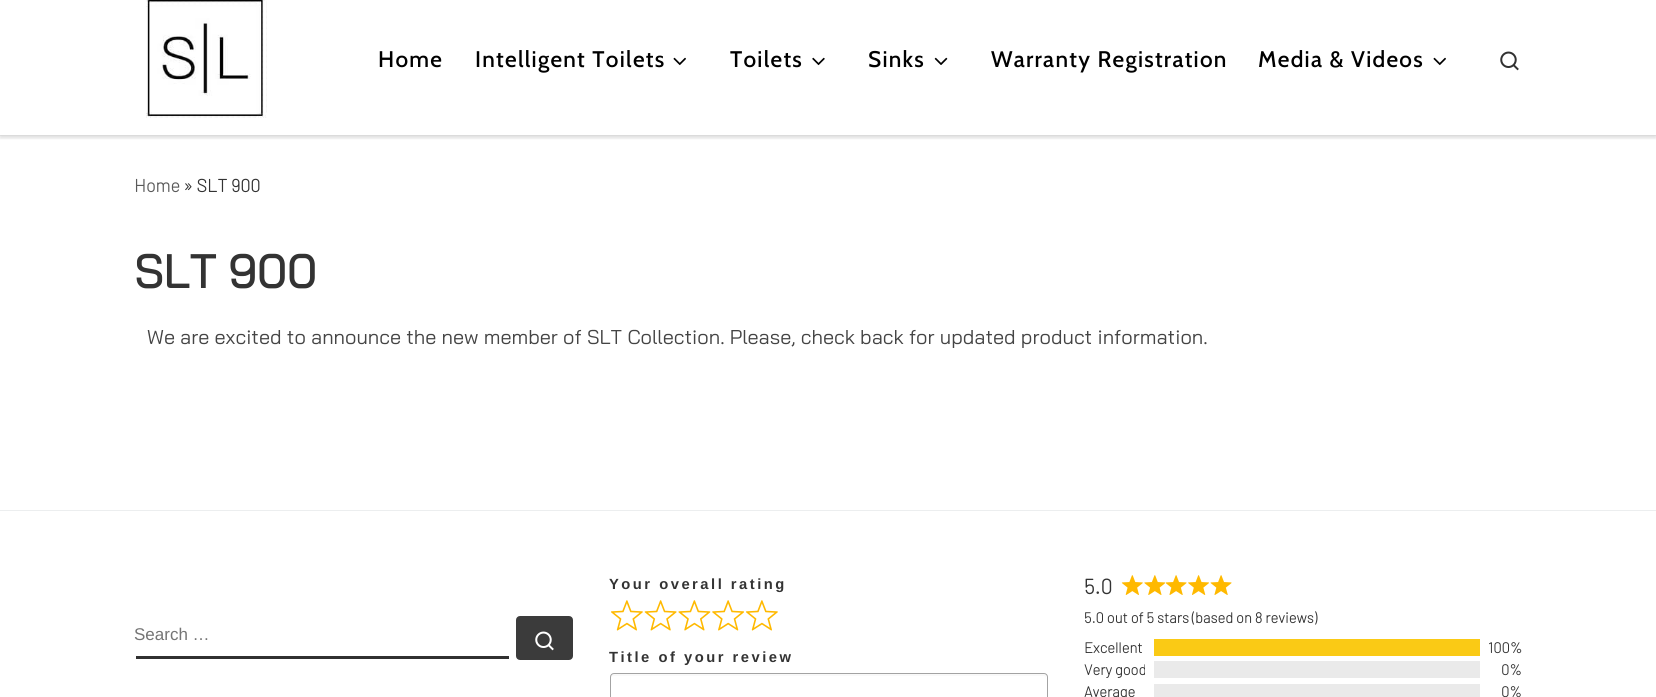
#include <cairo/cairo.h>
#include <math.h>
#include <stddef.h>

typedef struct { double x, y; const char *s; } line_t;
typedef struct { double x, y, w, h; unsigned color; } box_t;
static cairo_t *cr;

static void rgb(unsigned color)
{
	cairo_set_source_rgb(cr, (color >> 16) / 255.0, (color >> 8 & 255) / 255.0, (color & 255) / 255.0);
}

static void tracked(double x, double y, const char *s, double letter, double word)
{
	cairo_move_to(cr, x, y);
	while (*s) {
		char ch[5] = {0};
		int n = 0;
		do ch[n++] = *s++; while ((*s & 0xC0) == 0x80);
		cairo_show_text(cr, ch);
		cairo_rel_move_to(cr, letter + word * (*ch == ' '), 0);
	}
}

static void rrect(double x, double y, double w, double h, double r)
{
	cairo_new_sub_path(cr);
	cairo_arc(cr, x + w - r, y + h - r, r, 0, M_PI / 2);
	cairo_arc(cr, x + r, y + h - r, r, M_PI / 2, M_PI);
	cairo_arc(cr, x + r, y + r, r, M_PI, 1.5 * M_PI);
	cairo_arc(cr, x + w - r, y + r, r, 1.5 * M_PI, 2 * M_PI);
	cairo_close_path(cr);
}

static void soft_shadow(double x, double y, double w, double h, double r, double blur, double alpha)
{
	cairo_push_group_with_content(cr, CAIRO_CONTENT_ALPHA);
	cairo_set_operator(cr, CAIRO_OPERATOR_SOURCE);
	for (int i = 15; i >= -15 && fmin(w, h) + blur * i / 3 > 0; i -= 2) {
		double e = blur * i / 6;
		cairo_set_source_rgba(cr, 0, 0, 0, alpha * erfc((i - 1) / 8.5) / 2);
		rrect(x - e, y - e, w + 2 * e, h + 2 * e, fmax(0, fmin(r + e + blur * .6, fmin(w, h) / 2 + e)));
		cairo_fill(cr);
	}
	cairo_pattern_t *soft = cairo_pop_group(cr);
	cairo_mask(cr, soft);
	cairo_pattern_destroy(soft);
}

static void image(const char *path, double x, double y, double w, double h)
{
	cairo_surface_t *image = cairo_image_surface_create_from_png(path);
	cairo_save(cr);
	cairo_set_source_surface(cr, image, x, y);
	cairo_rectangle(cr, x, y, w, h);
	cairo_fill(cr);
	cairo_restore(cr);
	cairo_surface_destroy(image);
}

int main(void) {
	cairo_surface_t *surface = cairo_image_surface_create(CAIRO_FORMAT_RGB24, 1656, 697);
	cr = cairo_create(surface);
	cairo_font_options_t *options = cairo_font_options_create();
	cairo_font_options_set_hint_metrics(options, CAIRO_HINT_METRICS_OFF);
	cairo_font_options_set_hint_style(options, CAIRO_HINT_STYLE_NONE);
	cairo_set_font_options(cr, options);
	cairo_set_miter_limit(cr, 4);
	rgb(0xffffff);
	cairo_paint(cr);
	cairo_save(cr);
	cairo_rectangle(cr, 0, 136, 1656, 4);
	cairo_clip(cr);
	rgb(0x666666);
	soft_shadow(0, -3, 1656, 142, 0, 1, 0.08);
	cairo_restore(cr);
	rgb(0xefefef);
	cairo_rectangle(cr, 0, 135, 1656, 1);
	cairo_fill(cr);
	cairo_save(cr);
	cairo_rectangle(cr, 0, 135, 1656, 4);
	cairo_clip(cr);
	rgb(0x000000);
	soft_shadow(0, -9, 1656, 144, 0, 3, 0.2);
	cairo_restore(cr);
	image("img/1.png", 146, 0, 121, 118);
	image("img/2.png", 673, 57, 13, 9);
	image("img/3.png", 812, 57, 13, 9);
	image("img/4.png", 934, 57, 14, 8);
	image("img/2.png", 1433, 57, 13, 9);
	image("img/5.png", 1500, 51, 19, 20);
	rgb(0xeceeef);
	cairo_rectangle(cr, 0, 510, 1656, 1);
	cairo_fill(cr);
	rgb(0x313131);
	cairo_rectangle(cr, 136, 656, 373, 3);
	cairo_fill(cr);
	rgb(0x3b3b3b);
	rrect(517.5, 617.5, 54, 41, 2.5);
	cairo_fill_preserve(cr);
	cairo_set_line_width(cr, 3);
	cairo_stroke(cr);
	image("img/6.png", 535, 631, 19, 20);
	image("img/7.png", 611, 600, 32, 31);
	image("img/8.png", 644, 600, 33, 31);
	image("img/9.png", 678, 600, 33, 31);
	image("img/10.png", 712, 600, 32, 31);
	image("img/7.png", 746, 600, 32, 31);
	rgb(0xf9f9f9);
	cairo_new_path(cr);
	cairo_move_to(cr, 614, 676);
	cairo_line_to(cr, 1044, 676);
	cairo_curve_to(cr, 1045, 676, 1046, 677, 1046, 679);
	cairo_line_to(cr, 1046, 676);
	cairo_curve_to(cr, 1046, 675, 1045, 674, 1044, 674);
	cairo_line_to(cr, 614, 674);
	cairo_curve_to(cr, 612, 674, 611, 675, 611, 676);
	cairo_line_to(cr, 611, 679);
	cairo_curve_to(cr, 611, 677, 612, 676, 614, 676);
	cairo_close_path(cr);
	cairo_fill(cr);
	rrect(610.5, 673.5, 437, 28, 3.5);
	rgb(0xa3a3a3);
	cairo_set_line_width(cr, 1);
	cairo_stroke(cr);
	image("img/11.png", 1121, 575, 22, 20);
	image("img/12.png", 1144, 575, 21, 20);
	image("img/13.png", 1165, 575, 22, 20);
	image("img/14.png", 1188, 575, 21, 20);
	image("img/13.png", 1210, 575, 22, 20);
	{
		static const box_t items[] = {
			{1154, 639, 326, 17, 0xfaca15},
			{1154, 661, 326, 17, 0xeaeaea},
			{1154, 684, 326, 13, 0xeaeaea},
		};
		for (size_t i = 0; i < sizeof items / sizeof *items; i++) {
			rgb(items[i].color);
			cairo_rectangle(cr, items[i].x, items[i].y, items[i].w, items[i].h);
			cairo_fill(cr);
		}
	}
	cairo_select_font_face(cr, "Cabin Medium", CAIRO_FONT_SLANT_NORMAL, CAIRO_FONT_WEIGHT_NORMAL);
	cairo_set_font_size(cr, 22.6);
	rgb(0x000000);
	{
		static const line_t items[] = {
			{378, 67, "Home"},
			{475, 67, "Intelligent Toilets"},
			{730, 67, "Toilets"},
			{868, 67, "Sinks"},
			{991, 67, "Warranty Registration"},
			{1258, 67, "Media & Videos"},
		};
		for (size_t i = 0; i < sizeof items / sizeof *items; i++) {
			tracked(items[i].x, items[i].y, items[i].s, 1.25, 0);
		}
	}
	cairo_select_font_face(cr, "Barlow", CAIRO_FONT_SLANT_NORMAL, CAIRO_FONT_WEIGHT_BOLD);
	cairo_set_font_size(cr, 18);
	rgb(0x5a5a5a);
	cairo_move_to(cr, 134, 192);
	cairo_show_text(cr, "Home");
	rgb(0x333333);
	cairo_move_to(cr, 183, 192);
	cairo_show_text(cr, "» SLT 900");
	cairo_select_font_face(cr, "Bai Jamjuree", CAIRO_FONT_SLANT_NORMAL, CAIRO_FONT_WEIGHT_BOLD);
	cairo_set_font_size(cr, 46.5);
	cairo_move_to(cr, 134, 288);
	cairo_show_text(cr, "SLT 900");
	cairo_select_font_face(cr, "Bai Jamjuree", CAIRO_FONT_SLANT_NORMAL, CAIRO_FONT_WEIGHT_NORMAL);
	cairo_set_font_size(cr, 20);
	rgb(0x444444);
	cairo_move_to(cr, 147, 344);
	cairo_show_text(cr, "We are excited to announce the new member of SLT Collection. Please, check back for updated product information.");
	cairo_select_font_face(cr, "Liberation Sans", CAIRO_FONT_SLANT_NORMAL, CAIRO_FONT_WEIGHT_NORMAL);
	cairo_set_font_size(cr, 17);
	rgb(0x757575);
	cairo_move_to(cr, 134, 640);
	cairo_show_text(cr, "Search …");
	cairo_select_font_face(cr, "Liberation Sans", CAIRO_FONT_SLANT_NORMAL, CAIRO_FONT_WEIGHT_BOLD);
	cairo_set_font_size(cr, 14.75);
	rgb(0x333333);
	tracked(609, 589, "Your overall rating", 2.5, 0);
	tracked(609, 662, "Title of your review", 2.5, 0);
	cairo_select_font_face(cr, "Barlow", CAIRO_FONT_SLANT_NORMAL, CAIRO_FONT_WEIGHT_BOLD);
	cairo_set_font_size(cr, 21);
	cairo_move_to(cr, 1084, 594);
	cairo_show_text(cr, "5.0");
	cairo_set_font_size(cr, 14.75);
	{
		static const line_t items[] = {
			{1084, 623, "5.0 out of 5 stars (based on 8 reviews)"},
			{1084, 653, "Excellent"},
			{1488, 653, "100%"},
			{1084, 675, "Very good"},
			{1501, 675, "0%"},
			{1084, 697, "Average"},
			{1501, 697, "0%"},
		};
		for (size_t i = 0; i < sizeof items / sizeof *items; i++) {
			cairo_move_to(cr, items[i].x, items[i].y);
			cairo_show_text(cr, items[i].s);
		}
	}
	cairo_surface_write_to_png(surface, "page.png");
	cairo_font_options_destroy(options);
	cairo_destroy(cr);
	cairo_surface_destroy(surface);
	return 0;
}
